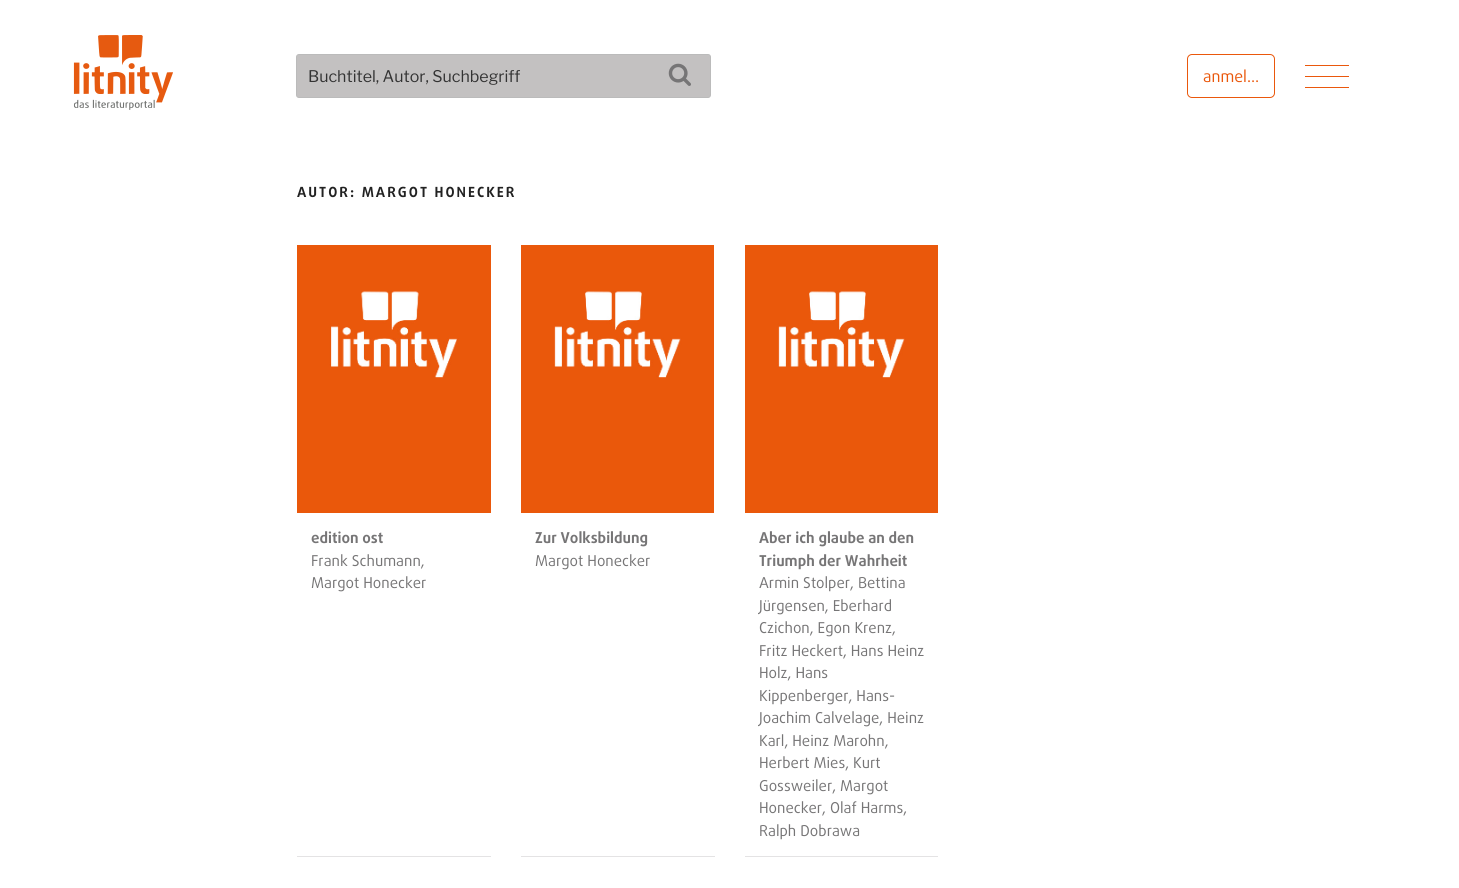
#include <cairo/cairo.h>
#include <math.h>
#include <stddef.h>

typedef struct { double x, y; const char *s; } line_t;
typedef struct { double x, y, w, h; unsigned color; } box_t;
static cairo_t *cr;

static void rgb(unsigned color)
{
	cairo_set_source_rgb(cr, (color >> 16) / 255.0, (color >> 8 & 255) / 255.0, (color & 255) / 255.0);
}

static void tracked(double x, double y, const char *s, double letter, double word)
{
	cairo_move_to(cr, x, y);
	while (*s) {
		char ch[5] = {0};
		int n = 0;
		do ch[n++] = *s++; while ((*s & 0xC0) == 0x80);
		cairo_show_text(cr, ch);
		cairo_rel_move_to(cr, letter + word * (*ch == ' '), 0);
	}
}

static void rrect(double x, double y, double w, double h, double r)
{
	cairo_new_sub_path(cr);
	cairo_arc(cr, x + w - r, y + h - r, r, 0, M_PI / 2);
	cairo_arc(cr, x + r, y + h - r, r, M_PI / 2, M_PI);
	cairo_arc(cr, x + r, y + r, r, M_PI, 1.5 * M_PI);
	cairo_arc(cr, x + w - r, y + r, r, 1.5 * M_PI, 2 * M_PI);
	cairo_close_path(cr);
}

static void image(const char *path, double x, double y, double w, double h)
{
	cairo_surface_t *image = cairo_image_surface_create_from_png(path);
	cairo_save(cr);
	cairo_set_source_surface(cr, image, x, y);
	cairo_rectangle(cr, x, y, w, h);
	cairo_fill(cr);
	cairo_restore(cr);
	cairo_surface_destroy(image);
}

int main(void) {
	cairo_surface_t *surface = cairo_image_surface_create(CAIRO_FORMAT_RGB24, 1459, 888);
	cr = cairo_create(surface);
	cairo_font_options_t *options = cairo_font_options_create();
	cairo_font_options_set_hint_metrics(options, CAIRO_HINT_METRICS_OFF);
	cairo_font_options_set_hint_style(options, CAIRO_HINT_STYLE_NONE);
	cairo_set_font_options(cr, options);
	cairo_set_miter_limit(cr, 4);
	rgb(0xffffff);
	cairo_paint(cr);
	image("img/1.png", 73, 35, 100, 75);
	rgb(0xc3c1c1);
	rrect(296.5, 54.5, 414, 43, 2.5);
	cairo_fill_preserve(cr);
	rgb(0xbbbbbb);
	cairo_set_line_width(cr, 1);
	cairo_stroke(cr);
	image("img/2.png", 668, 63, 23, 23);
	rrect(1187.5, 54.5, 87, 43, 4.5);
	rgb(0xea580c);
	cairo_stroke(cr);
	{
		static const box_t items[] = {
			{1305, 76, 44, 1, 0xea580c},
			{1305, 65, 44, 1, 0xea580c},
			{1305, 87, 44, 1, 0xea580c},
			{297, 856, 194, 1, 0xe4e3e4},
		};
		for (size_t i = 0; i < sizeof items / sizeof *items; i++) {
			rgb(items[i].color);
			cairo_rectangle(cr, items[i].x, items[i].y, items[i].w, items[i].h);
			cairo_fill(cr);
		}
	}
	image("img/3.png", 297, 245, 194, 268);
	cairo_rectangle(cr, 521, 856, 194, 1);
	cairo_fill(cr);
	image("img/4.png", 521, 245, 193, 268);
	cairo_rectangle(cr, 745, 856, 193, 1);
	cairo_fill(cr);
	image("img/4.png", 745, 245, 193, 268);
	cairo_select_font_face(cr, "Libre Franklin", CAIRO_FONT_SLANT_NORMAL, CAIRO_FONT_WEIGHT_NORMAL);
	cairo_set_font_size(cr, 16);
	rgb(0x333333);
	cairo_move_to(cr, 308, 82);
	cairo_show_text(cr, "Buchtitel, Autor, Suchbegriff");
	cairo_select_font_face(cr, "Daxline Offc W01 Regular", CAIRO_FONT_SLANT_NORMAL, CAIRO_FONT_WEIGHT_NORMAL);
	rgb(0xea580c);
	cairo_move_to(cr, 1203, 82);
	cairo_show_text(cr, "anmel…");
	cairo_select_font_face(cr, "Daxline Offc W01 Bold", CAIRO_FONT_SLANT_NORMAL, CAIRO_FONT_WEIGHT_BOLD);
	cairo_set_font_size(cr, 14);
	rgb(0x222222);
	tracked(297, 197, "AUTOR: MARGOT HONECKER", 2, 0);
	cairo_set_font_size(cr, 15);
	rgb(0x767576);
	cairo_move_to(cr, 311, 543);
	cairo_show_text(cr, "edition ost");
	cairo_select_font_face(cr, "Daxline Offc W01 Regular", CAIRO_FONT_SLANT_NORMAL, CAIRO_FONT_WEIGHT_NORMAL);
	cairo_move_to(cr, 311, 566);
	cairo_show_text(cr, "Frank Schumann,");
	cairo_move_to(cr, 311, 588);
	cairo_show_text(cr, "Margot Honecker");
	cairo_select_font_face(cr, "Daxline Offc W01 Bold", CAIRO_FONT_SLANT_NORMAL, CAIRO_FONT_WEIGHT_BOLD);
	cairo_move_to(cr, 535, 543);
	cairo_show_text(cr, "Zur Volksbildung");
	cairo_select_font_face(cr, "Daxline Offc W01 Regular", CAIRO_FONT_SLANT_NORMAL, CAIRO_FONT_WEIGHT_NORMAL);
	cairo_move_to(cr, 535, 566);
	cairo_show_text(cr, "Margot Honecker");
	cairo_select_font_face(cr, "Daxline Offc W01 Bold", CAIRO_FONT_SLANT_NORMAL, CAIRO_FONT_WEIGHT_BOLD);
	cairo_move_to(cr, 759, 543);
	cairo_show_text(cr, "Aber ich glaube an den");
	cairo_move_to(cr, 759, 566);
	cairo_show_text(cr, "Triumph der Wahrheit");
	cairo_select_font_face(cr, "Daxline Offc W01 Regular", CAIRO_FONT_SLANT_NORMAL, CAIRO_FONT_WEIGHT_NORMAL);
	{
		static const line_t items[] = {
			{759, 588, "Armin Stolper, Bettina"},
			{759, 611, "Jürgensen, Eberhard"},
			{759, 633, "Czichon, Egon Krenz,"},
			{759, 656, "Fritz Heckert, Hans Heinz"},
			{759, 678, "Holz, Hans"},
			{759, 701, "Kippenberger, Hans-"},
			{759, 723, "Joachim Calvelage, Heinz"},
			{759, 746, "Karl, Heinz Marohn,"},
			{759, 768, "Herbert Mies, Kurt"},
			{759, 791, "Gossweiler, Margot"},
			{759, 813, "Honecker, Olaf Harms,"},
			{759, 836, "Ralph Dobrawa"},
		};
		for (size_t i = 0; i < sizeof items / sizeof *items; i++) {
			cairo_move_to(cr, items[i].x, items[i].y);
			cairo_show_text(cr, items[i].s);
		}
	}
	cairo_surface_write_to_png(surface, "page.png");
	cairo_font_options_destroy(options);
	cairo_destroy(cr);
	cairo_surface_destroy(surface);
	return 0;
}
